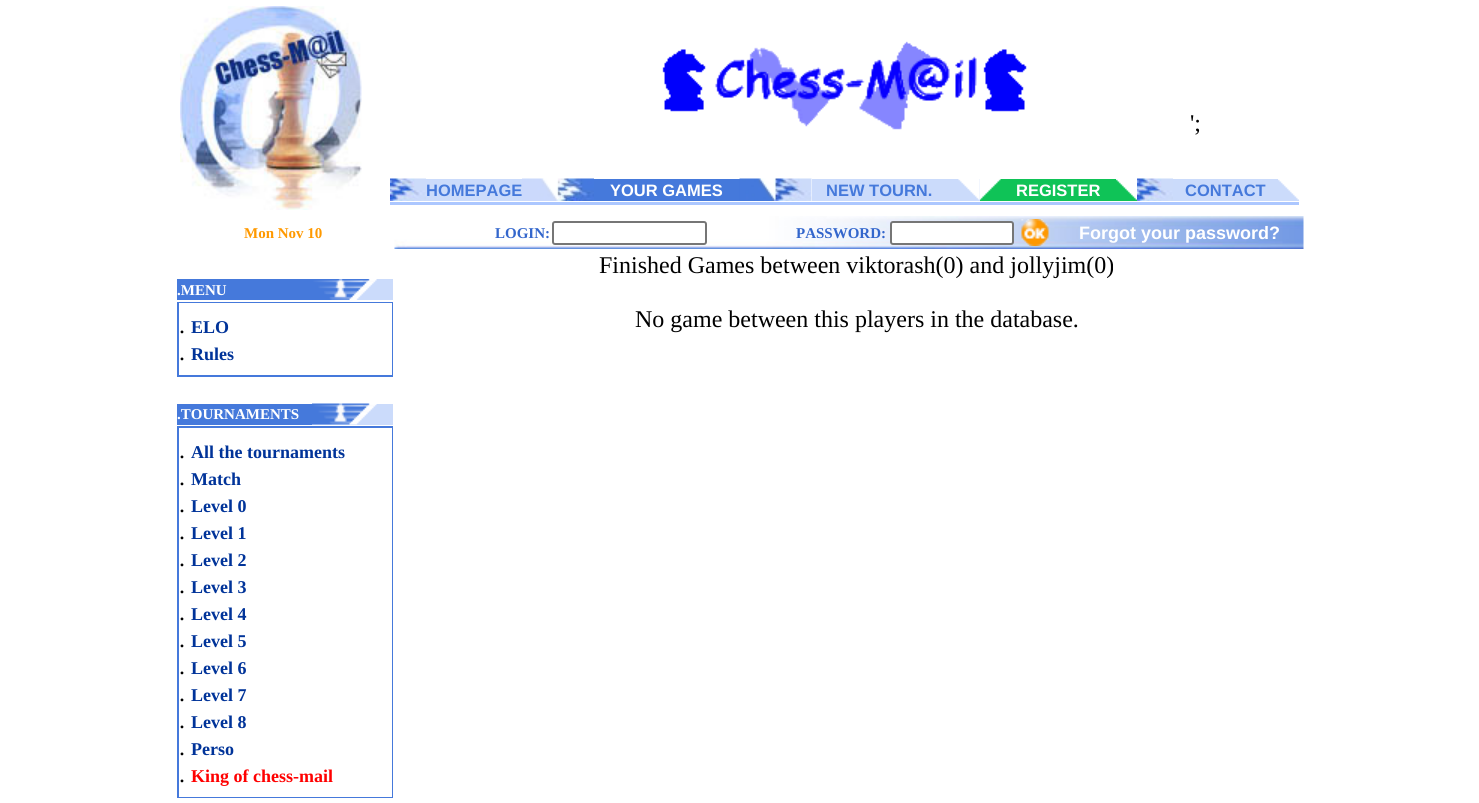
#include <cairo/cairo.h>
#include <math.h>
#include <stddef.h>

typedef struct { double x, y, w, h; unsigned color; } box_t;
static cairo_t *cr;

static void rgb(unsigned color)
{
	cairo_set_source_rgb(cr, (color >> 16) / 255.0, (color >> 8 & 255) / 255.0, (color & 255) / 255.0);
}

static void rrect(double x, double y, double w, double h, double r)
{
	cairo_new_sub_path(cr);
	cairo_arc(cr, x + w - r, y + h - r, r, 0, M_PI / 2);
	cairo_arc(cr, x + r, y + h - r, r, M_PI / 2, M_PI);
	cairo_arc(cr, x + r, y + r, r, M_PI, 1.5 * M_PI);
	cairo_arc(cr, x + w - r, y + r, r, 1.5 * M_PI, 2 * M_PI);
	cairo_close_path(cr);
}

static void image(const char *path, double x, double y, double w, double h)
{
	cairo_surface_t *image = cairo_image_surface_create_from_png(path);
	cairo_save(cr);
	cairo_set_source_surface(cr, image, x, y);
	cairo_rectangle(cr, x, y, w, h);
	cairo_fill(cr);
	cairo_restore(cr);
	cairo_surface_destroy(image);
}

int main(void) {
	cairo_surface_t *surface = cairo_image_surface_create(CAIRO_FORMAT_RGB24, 1479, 803);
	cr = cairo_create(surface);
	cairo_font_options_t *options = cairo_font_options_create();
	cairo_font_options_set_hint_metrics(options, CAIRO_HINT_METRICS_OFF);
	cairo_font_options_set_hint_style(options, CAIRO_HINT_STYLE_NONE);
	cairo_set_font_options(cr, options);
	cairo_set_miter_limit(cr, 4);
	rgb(0xffffff);
	cairo_paint(cr);
	image("img/1.png", 180, 6, 182, 204);
	image("img/2.png", 662, 41, 365, 89);
	image("img/3.png", 390, 178, 36, 23);
	image("img/4.png", 522, 178, 72, 23);
	rgb(0x4579db);
	cairo_rectangle(cr, 594, 179, 146, 22);
	cairo_fill(cr);
	image("img/5.png", 739, 178, 73, 23);
	rgb(0xcbdbfb);
	cairo_rectangle(cr, 812, 179, 168, 22);
	cairo_fill(cr);
	image("img/6.png", 958, 179, 22, 21);
	rgb(0x0fc357);
	cairo_rectangle(cr, 980, 179, 157, 22);
	cairo_fill(cr);
	image("img/7.png", 979, 179, 22, 21);
	image("img/3.png", 1137, 178, 36, 23);
	rgb(0xcbdbfb);
	cairo_rectangle(cr, 426, 179, 96, 22);
	cairo_fill(cr);
	image("img/8.png", 1116, 179, 21, 21);
	cairo_rectangle(cr, 1173, 179, 126, 22);
	cairo_fill(cr);
	image("img/9.png", 1278, 179, 21, 21);
	rgb(0xacc7ff);
	cairo_rectangle(cr, 390, 202, 909, 3);
	cairo_fill(cr);
	image("img/10.png", 394, 216, 910, 33);
	rgb(0xffffff);
	rrect(553, 222, 153, 22, 2);
	cairo_fill_preserve(cr);
	rgb(0x767676);
	cairo_stroke(cr);
	rgb(0xffffff);
	rrect(891, 222, 122, 22, 2);
	cairo_fill_preserve(cr);
	rgb(0x767676);
	cairo_stroke(cr);
	image("img/11.png", 1021, 219, 28, 27);
	rgb(0x4579db);
	cairo_rectangle(cr, 177, 279, 135, 21);
	cairo_fill(cr);
	rgb(0xcbdbfb);
	cairo_rectangle(cr, 356, 279, 37, 21);
	cairo_fill(cr);
	image("img/12.png", 312, 279, 65, 21);
	{
		static const box_t items[] = {
			{177, 302, 216, 75, 0x4579db},
			{179, 303, 213, 72, 0xffffff},
			{177, 404, 135, 21, 0x4579db},
			{312, 404, 81, 21, 0xcbdbfb},
		};
		for (size_t i = 0; i < sizeof items / sizeof *items; i++) {
			rgb(items[i].color);
			cairo_rectangle(cr, items[i].x, items[i].y, items[i].w, items[i].h);
			cairo_fill(cr);
		}
	}
	image("img/13.png", 312, 403, 65, 22);
	rgb(0x4579db);
	cairo_rectangle(cr, 177, 426, 216, 372);
	cairo_fill(cr);
	rgb(0xffffff);
	cairo_rectangle(cr, 179, 428, 213, 369);
	cairo_fill(cr);
	cairo_select_font_face(cr, "Liberation Serif", CAIRO_FONT_SLANT_NORMAL, CAIRO_FONT_WEIGHT_NORMAL);
	cairo_set_font_size(cr, 24);
	rgb(0x000000);
	cairo_move_to(cr, 1190, 131);
	cairo_show_text(cr, "';");
	cairo_select_font_face(cr, "Liberation Sans", CAIRO_FONT_SLANT_NORMAL, CAIRO_FONT_WEIGHT_BOLD);
	cairo_set_font_size(cr, 16.5);
	rgb(0x4579db);
	cairo_move_to(cr, 426, 196);
	cairo_show_text(cr, "HOMEPAGE");
	rgb(0xffffff);
	cairo_move_to(cr, 610, 196);
	cairo_show_text(cr, "YOUR GAMES");
	rgb(0x4579db);
	cairo_move_to(cr, 826, 196);
	cairo_show_text(cr, "NEW TOURN.");
	rgb(0xffffff);
	cairo_move_to(cr, 1016, 196);
	cairo_show_text(cr, "REGISTER");
	rgb(0x4579db);
	cairo_move_to(cr, 1185, 196);
	cairo_show_text(cr, "CONTACT");
	cairo_select_font_face(cr, "Liberation Serif", CAIRO_FONT_SLANT_NORMAL, CAIRO_FONT_WEIGHT_BOLD);
	cairo_set_font_size(cr, 15);
	rgb(0xff9900);
	cairo_move_to(cr, 244, 238);
	cairo_show_text(cr, "Mon Nov 10");
	rgb(0x3366cc);
	cairo_move_to(cr, 495, 238);
	cairo_show_text(cr, "LOGIN:");
	cairo_move_to(cr, 796, 238);
	cairo_show_text(cr, "PASSWORD:");
	cairo_select_font_face(cr, "Liberation Sans", CAIRO_FONT_SLANT_NORMAL, CAIRO_FONT_WEIGHT_BOLD);
	cairo_set_font_size(cr, 18);
	rgb(0xffffff);
	cairo_move_to(cr, 1079, 239);
	cairo_show_text(cr, "Forgot your password?");
	cairo_select_font_face(cr, "Liberation Serif", CAIRO_FONT_SLANT_NORMAL, CAIRO_FONT_WEIGHT_BOLD);
	cairo_set_font_size(cr, 15);
	cairo_move_to(cr, 177, 295);
	cairo_show_text(cr, ".MENU");
	cairo_select_font_face(cr, "Liberation Serif", CAIRO_FONT_SLANT_NORMAL, CAIRO_FONT_WEIGHT_NORMAL);
	cairo_set_font_size(cr, 24);
	rgb(0x000000);
	cairo_move_to(cr, 179, 333);
	cairo_show_text(cr, ".");
	cairo_select_font_face(cr, "Liberation Serif", CAIRO_FONT_SLANT_NORMAL, CAIRO_FONT_WEIGHT_BOLD);
	cairo_set_font_size(cr, 18);
	rgb(0x003399);
	cairo_move_to(cr, 191, 333);
	cairo_show_text(cr, "ELO");
	cairo_select_font_face(cr, "Liberation Serif", CAIRO_FONT_SLANT_NORMAL, CAIRO_FONT_WEIGHT_NORMAL);
	cairo_set_font_size(cr, 24);
	rgb(0x000000);
	cairo_move_to(cr, 179, 360);
	cairo_show_text(cr, ".");
	cairo_select_font_face(cr, "Liberation Serif", CAIRO_FONT_SLANT_NORMAL, CAIRO_FONT_WEIGHT_BOLD);
	cairo_set_font_size(cr, 18);
	rgb(0x003399);
	cairo_move_to(cr, 191, 360);
	cairo_show_text(cr, "Rules");
	cairo_set_font_size(cr, 15);
	rgb(0xffffff);
	cairo_move_to(cr, 177, 419);
	cairo_show_text(cr, ".TOURNAMENTS");
	cairo_select_font_face(cr, "Liberation Serif", CAIRO_FONT_SLANT_NORMAL, CAIRO_FONT_WEIGHT_NORMAL);
	cairo_set_font_size(cr, 24);
	rgb(0x000000);
	cairo_move_to(cr, 179, 458);
	cairo_show_text(cr, ".");
	cairo_select_font_face(cr, "Liberation Serif", CAIRO_FONT_SLANT_NORMAL, CAIRO_FONT_WEIGHT_BOLD);
	cairo_set_font_size(cr, 18);
	rgb(0x003399);
	cairo_move_to(cr, 191, 458);
	cairo_show_text(cr, "All the tournaments");
	cairo_select_font_face(cr, "Liberation Serif", CAIRO_FONT_SLANT_NORMAL, CAIRO_FONT_WEIGHT_NORMAL);
	cairo_set_font_size(cr, 24);
	rgb(0x000000);
	cairo_move_to(cr, 179, 485);
	cairo_show_text(cr, ".");
	cairo_select_font_face(cr, "Liberation Serif", CAIRO_FONT_SLANT_NORMAL, CAIRO_FONT_WEIGHT_BOLD);
	cairo_set_font_size(cr, 18);
	rgb(0x003399);
	cairo_move_to(cr, 191, 485);
	cairo_show_text(cr, "Match");
	cairo_select_font_face(cr, "Liberation Serif", CAIRO_FONT_SLANT_NORMAL, CAIRO_FONT_WEIGHT_NORMAL);
	cairo_set_font_size(cr, 24);
	rgb(0x000000);
	cairo_move_to(cr, 179, 512);
	cairo_show_text(cr, ".");
	cairo_select_font_face(cr, "Liberation Serif", CAIRO_FONT_SLANT_NORMAL, CAIRO_FONT_WEIGHT_BOLD);
	cairo_set_font_size(cr, 18);
	rgb(0x003399);
	cairo_move_to(cr, 191, 512);
	cairo_show_text(cr, "Level 0");
	cairo_select_font_face(cr, "Liberation Serif", CAIRO_FONT_SLANT_NORMAL, CAIRO_FONT_WEIGHT_NORMAL);
	cairo_set_font_size(cr, 24);
	rgb(0x000000);
	cairo_move_to(cr, 179, 539);
	cairo_show_text(cr, ".");
	cairo_select_font_face(cr, "Liberation Serif", CAIRO_FONT_SLANT_NORMAL, CAIRO_FONT_WEIGHT_BOLD);
	cairo_set_font_size(cr, 18);
	rgb(0x003399);
	cairo_move_to(cr, 191, 539);
	cairo_show_text(cr, "Level 1");
	cairo_select_font_face(cr, "Liberation Serif", CAIRO_FONT_SLANT_NORMAL, CAIRO_FONT_WEIGHT_NORMAL);
	cairo_set_font_size(cr, 24);
	rgb(0x000000);
	cairo_move_to(cr, 179, 566);
	cairo_show_text(cr, ".");
	cairo_select_font_face(cr, "Liberation Serif", CAIRO_FONT_SLANT_NORMAL, CAIRO_FONT_WEIGHT_BOLD);
	cairo_set_font_size(cr, 18);
	rgb(0x003399);
	cairo_move_to(cr, 191, 566);
	cairo_show_text(cr, "Level 2");
	cairo_select_font_face(cr, "Liberation Serif", CAIRO_FONT_SLANT_NORMAL, CAIRO_FONT_WEIGHT_NORMAL);
	cairo_set_font_size(cr, 24);
	rgb(0x000000);
	cairo_move_to(cr, 179, 593);
	cairo_show_text(cr, ".");
	cairo_select_font_face(cr, "Liberation Serif", CAIRO_FONT_SLANT_NORMAL, CAIRO_FONT_WEIGHT_BOLD);
	cairo_set_font_size(cr, 18);
	rgb(0x003399);
	cairo_move_to(cr, 191, 593);
	cairo_show_text(cr, "Level 3");
	cairo_select_font_face(cr, "Liberation Serif", CAIRO_FONT_SLANT_NORMAL, CAIRO_FONT_WEIGHT_NORMAL);
	cairo_set_font_size(cr, 24);
	rgb(0x000000);
	cairo_move_to(cr, 179, 620);
	cairo_show_text(cr, ".");
	cairo_select_font_face(cr, "Liberation Serif", CAIRO_FONT_SLANT_NORMAL, CAIRO_FONT_WEIGHT_BOLD);
	cairo_set_font_size(cr, 18);
	rgb(0x003399);
	cairo_move_to(cr, 191, 620);
	cairo_show_text(cr, "Level 4");
	cairo_select_font_face(cr, "Liberation Serif", CAIRO_FONT_SLANT_NORMAL, CAIRO_FONT_WEIGHT_NORMAL);
	cairo_set_font_size(cr, 24);
	rgb(0x000000);
	cairo_move_to(cr, 179, 647);
	cairo_show_text(cr, ".");
	cairo_select_font_face(cr, "Liberation Serif", CAIRO_FONT_SLANT_NORMAL, CAIRO_FONT_WEIGHT_BOLD);
	cairo_set_font_size(cr, 18);
	rgb(0x003399);
	cairo_move_to(cr, 191, 647);
	cairo_show_text(cr, "Level 5");
	cairo_select_font_face(cr, "Liberation Serif", CAIRO_FONT_SLANT_NORMAL, CAIRO_FONT_WEIGHT_NORMAL);
	cairo_set_font_size(cr, 24);
	rgb(0x000000);
	cairo_move_to(cr, 179, 674);
	cairo_show_text(cr, ".");
	cairo_select_font_face(cr, "Liberation Serif", CAIRO_FONT_SLANT_NORMAL, CAIRO_FONT_WEIGHT_BOLD);
	cairo_set_font_size(cr, 18);
	rgb(0x003399);
	cairo_move_to(cr, 191, 674);
	cairo_show_text(cr, "Level 6");
	cairo_select_font_face(cr, "Liberation Serif", CAIRO_FONT_SLANT_NORMAL, CAIRO_FONT_WEIGHT_NORMAL);
	cairo_set_font_size(cr, 24);
	rgb(0x000000);
	cairo_move_to(cr, 179, 701);
	cairo_show_text(cr, ".");
	cairo_select_font_face(cr, "Liberation Serif", CAIRO_FONT_SLANT_NORMAL, CAIRO_FONT_WEIGHT_BOLD);
	cairo_set_font_size(cr, 18);
	rgb(0x003399);
	cairo_move_to(cr, 191, 701);
	cairo_show_text(cr, "Level 7");
	cairo_select_font_face(cr, "Liberation Serif", CAIRO_FONT_SLANT_NORMAL, CAIRO_FONT_WEIGHT_NORMAL);
	cairo_set_font_size(cr, 24);
	rgb(0x000000);
	cairo_move_to(cr, 179, 728);
	cairo_show_text(cr, ".");
	cairo_select_font_face(cr, "Liberation Serif", CAIRO_FONT_SLANT_NORMAL, CAIRO_FONT_WEIGHT_BOLD);
	cairo_set_font_size(cr, 18);
	rgb(0x003399);
	cairo_move_to(cr, 191, 728);
	cairo_show_text(cr, "Level 8");
	cairo_select_font_face(cr, "Liberation Serif", CAIRO_FONT_SLANT_NORMAL, CAIRO_FONT_WEIGHT_NORMAL);
	cairo_set_font_size(cr, 24);
	rgb(0x000000);
	cairo_move_to(cr, 179, 755);
	cairo_show_text(cr, ".");
	cairo_select_font_face(cr, "Liberation Serif", CAIRO_FONT_SLANT_NORMAL, CAIRO_FONT_WEIGHT_BOLD);
	cairo_set_font_size(cr, 18);
	rgb(0x003399);
	cairo_move_to(cr, 191, 755);
	cairo_show_text(cr, "Perso");
	cairo_select_font_face(cr, "Liberation Serif", CAIRO_FONT_SLANT_NORMAL, CAIRO_FONT_WEIGHT_NORMAL);
	cairo_set_font_size(cr, 24);
	rgb(0x000000);
	cairo_move_to(cr, 179, 782);
	cairo_show_text(cr, ".");
	cairo_select_font_face(cr, "Liberation Serif", CAIRO_FONT_SLANT_NORMAL, CAIRO_FONT_WEIGHT_BOLD);
	cairo_set_font_size(cr, 18);
	rgb(0xff0000);
	cairo_move_to(cr, 191, 782);
	cairo_show_text(cr, "King of chess-mail");
	cairo_select_font_face(cr, "Liberation Serif", CAIRO_FONT_SLANT_NORMAL, CAIRO_FONT_WEIGHT_NORMAL);
	cairo_set_font_size(cr, 24);
	rgb(0x000000);
	cairo_move_to(cr, 599, 273);
	cairo_show_text(cr, "Finished Games between viktorash(0) and jollyjim(0)");
	cairo_move_to(cr, 635, 327);
	cairo_show_text(cr, "No game between this players in the database.");
	cairo_surface_write_to_png(surface, "page.png");
	cairo_font_options_destroy(options);
	cairo_destroy(cr);
	cairo_surface_destroy(surface);
	return 0;
}
